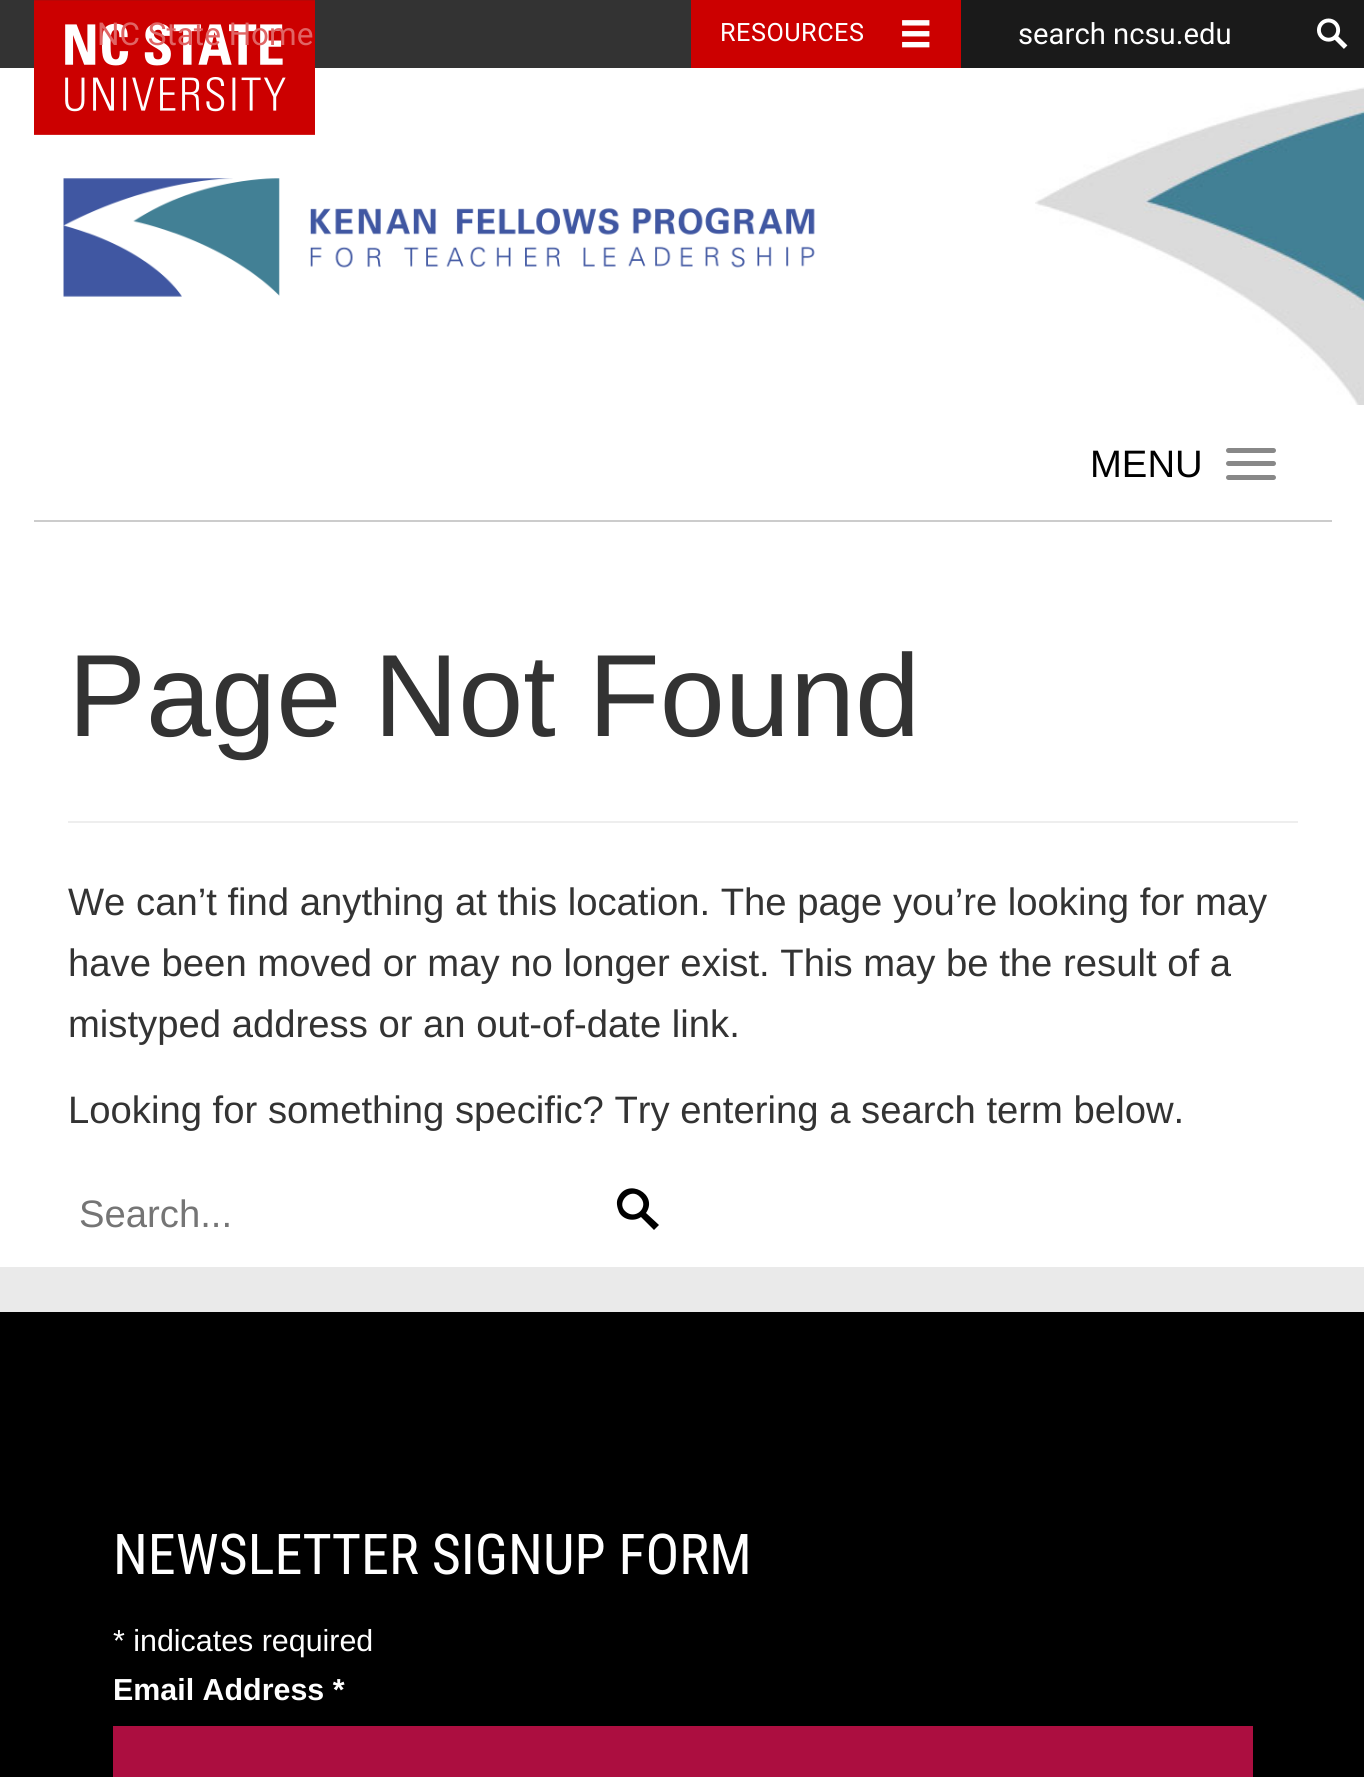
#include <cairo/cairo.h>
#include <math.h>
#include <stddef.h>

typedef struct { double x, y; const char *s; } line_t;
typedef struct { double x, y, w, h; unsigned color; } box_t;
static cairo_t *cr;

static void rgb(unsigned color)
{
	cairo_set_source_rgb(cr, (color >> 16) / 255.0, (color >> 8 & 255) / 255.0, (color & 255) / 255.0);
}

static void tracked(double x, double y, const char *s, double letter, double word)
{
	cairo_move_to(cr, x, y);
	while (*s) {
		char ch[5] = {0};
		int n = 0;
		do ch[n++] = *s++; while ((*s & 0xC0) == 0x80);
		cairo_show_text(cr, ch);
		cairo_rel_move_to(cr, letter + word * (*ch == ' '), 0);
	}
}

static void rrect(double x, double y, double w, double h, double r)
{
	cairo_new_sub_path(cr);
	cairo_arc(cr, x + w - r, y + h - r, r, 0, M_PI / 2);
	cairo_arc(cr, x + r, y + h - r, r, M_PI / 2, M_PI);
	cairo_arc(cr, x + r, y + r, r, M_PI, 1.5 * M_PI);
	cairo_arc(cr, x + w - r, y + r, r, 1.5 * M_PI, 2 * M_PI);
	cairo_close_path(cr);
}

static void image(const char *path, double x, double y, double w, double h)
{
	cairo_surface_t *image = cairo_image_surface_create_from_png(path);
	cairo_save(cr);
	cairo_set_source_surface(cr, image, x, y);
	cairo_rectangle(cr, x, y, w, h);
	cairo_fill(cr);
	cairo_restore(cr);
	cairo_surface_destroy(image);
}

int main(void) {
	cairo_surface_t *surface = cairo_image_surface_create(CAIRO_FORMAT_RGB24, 1364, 1777);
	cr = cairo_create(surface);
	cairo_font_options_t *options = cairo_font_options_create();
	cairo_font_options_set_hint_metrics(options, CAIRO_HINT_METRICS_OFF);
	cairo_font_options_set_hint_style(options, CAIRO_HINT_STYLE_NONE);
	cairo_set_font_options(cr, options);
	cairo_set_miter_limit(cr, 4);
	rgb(0xffffff);
	cairo_paint(cr);
	rgb(0x333333);
	cairo_rectangle(cr, 0, 0, 691, 68);
	cairo_fill(cr);
	image("img/1.png", 34, 0, 281, 135);
	rgb(0xcc0000);
	cairo_rectangle(cr, 691, 0, 270, 68);
	cairo_fill(cr);
	image("img/2.png", 902, 20, 28, 28);
	rgb(0x1a1a1a);
	cairo_rectangle(cr, 961, 0, 403, 68);
	cairo_fill(cr);
	image("img/3.png", 1317, 18, 31, 31);
	image("img/4.png", 1035, 87, 329, 318);
	image("img/5.png", 63, 178, 752, 119);
	rgb(0xcccccc);
	cairo_rectangle(cr, 34, 520, 1298, 2);
	cairo_fill(cr);
	rgb(0x888888);
	rrect(1226, 448, 50, 5, 2.5);
	cairo_fill(cr);
	rrect(1226, 461, 50, 5, 2.5);
	cairo_fill(cr);
	rrect(1226, 475, 50, 5, 2.5);
	cairo_fill(cr);
	rgb(0xeeeeee);
	cairo_rectangle(cr, 68, 821, 1230, 2);
	cairo_fill(cr);
	rgb(0x000000);
	cairo_new_path(cr);
	cairo_move_to(cr, 659, 1225);
	cairo_line_to(cr, 646, 1213);
	cairo_curve_to(cr, 659, 1194, 627, 1177, 618, 1198);
	cairo_curve_to(cr, 616, 1202, 617, 1207, 619, 1212);
	cairo_curve_to(cr, 623, 1220, 634, 1222, 641, 1217);
	cairo_line_to(cr, 654, 1230);
	cairo_close_path(cr);
	cairo_move_to(cr, 625, 1211);
	cairo_curve_to(cr, 616, 1202, 631, 1187, 640, 1197);
	cairo_curve_to(cr, 650, 1207, 635, 1221, 625, 1211);
	cairo_close_path(cr);
	cairo_fill(cr);
	{
		static const box_t items[] = {
			{0, 1267, 1364, 45, 0xeaeaea},
			{0, 1312, 1364, 465, 0x000000},
			{113, 1726, 1140, 51, 0xac0e40},
		};
		for (size_t i = 0; i < sizeof items / sizeof *items; i++) {
			rgb(items[i].color);
			cairo_rectangle(cr, items[i].x, items[i].y, items[i].w, items[i].h);
			cairo_fill(cr);
		}
	}
	cairo_select_font_face(cr, "Roboto", CAIRO_FONT_SLANT_NORMAL, CAIRO_FONT_WEIGHT_NORMAL);
	cairo_set_font_size(cr, 31.5);
	rgb(0xe06565);
	cairo_move_to(cr, 97, 45);
	cairo_show_text(cr, "NC State Home");
	cairo_set_font_size(cr, 25.25);
	rgb(0xffffff);
	tracked(720, 41, "RESOURCES", 0.5, 0);
	cairo_set_font_size(cr, 29.25);
	cairo_move_to(cr, 1018, 44);
	cairo_show_text(cr, "search ncsu.edu");
	cairo_select_font_face(cr, "Liberation Sans", CAIRO_FONT_SLANT_NORMAL, CAIRO_FONT_WEIGHT_NORMAL);
	cairo_set_font_size(cr, 38.25);
	rgb(0x000000);
	cairo_move_to(cr, 1090, 477);
	cairo_show_text(cr, "MENU");
	cairo_set_font_size(cr, 117);
	rgb(0x333333);
	cairo_move_to(cr, 68, 736);
	cairo_show_text(cr, "Page Not Found");
	cairo_set_font_size(cr, 38.25);
	{
		static const line_t items[] = {
			{68, 915, "We can’t find anything at this location. The page you’re looking for may"},
			{68, 976, "have been moved or may no longer exist. This may be the result of a"},
			{68, 1037, "mistyped address or an out-of-date link."},
			{68, 1123, "Looking for something specific? Try entering a search term below."},
		};
		for (size_t i = 0; i < sizeof items / sizeof *items; i++) {
			cairo_move_to(cr, items[i].x, items[i].y);
			cairo_show_text(cr, items[i].s);
		}
	}
	rgb(0x757575);
	cairo_move_to(cr, 79, 1227);
	cairo_show_text(cr, "Search...");
	cairo_select_font_face(cr, "Roboto Condensed", CAIRO_FONT_SLANT_NORMAL, CAIRO_FONT_WEIGHT_NORMAL);
	cairo_set_font_size(cr, 56.25);
	rgb(0xffffff);
	cairo_move_to(cr, 113, 1574);
	cairo_show_text(cr, "NEWSLETTER SIGNUP FORM");
	cairo_select_font_face(cr, "Liberation Sans", CAIRO_FONT_SLANT_NORMAL, CAIRO_FONT_WEIGHT_NORMAL);
	cairo_set_font_size(cr, 30.4);
	cairo_move_to(cr, 113, 1651);
	cairo_show_text(cr, "* indicates required");
	cairo_select_font_face(cr, "Liberation Sans", CAIRO_FONT_SLANT_NORMAL, CAIRO_FONT_WEIGHT_BOLD);
	cairo_move_to(cr, 113, 1700);
	cairo_show_text(cr, "Email Address *");
	cairo_surface_write_to_png(surface, "page.png");
	cairo_font_options_destroy(options);
	cairo_destroy(cr);
	cairo_surface_destroy(surface);
	return 0;
}
